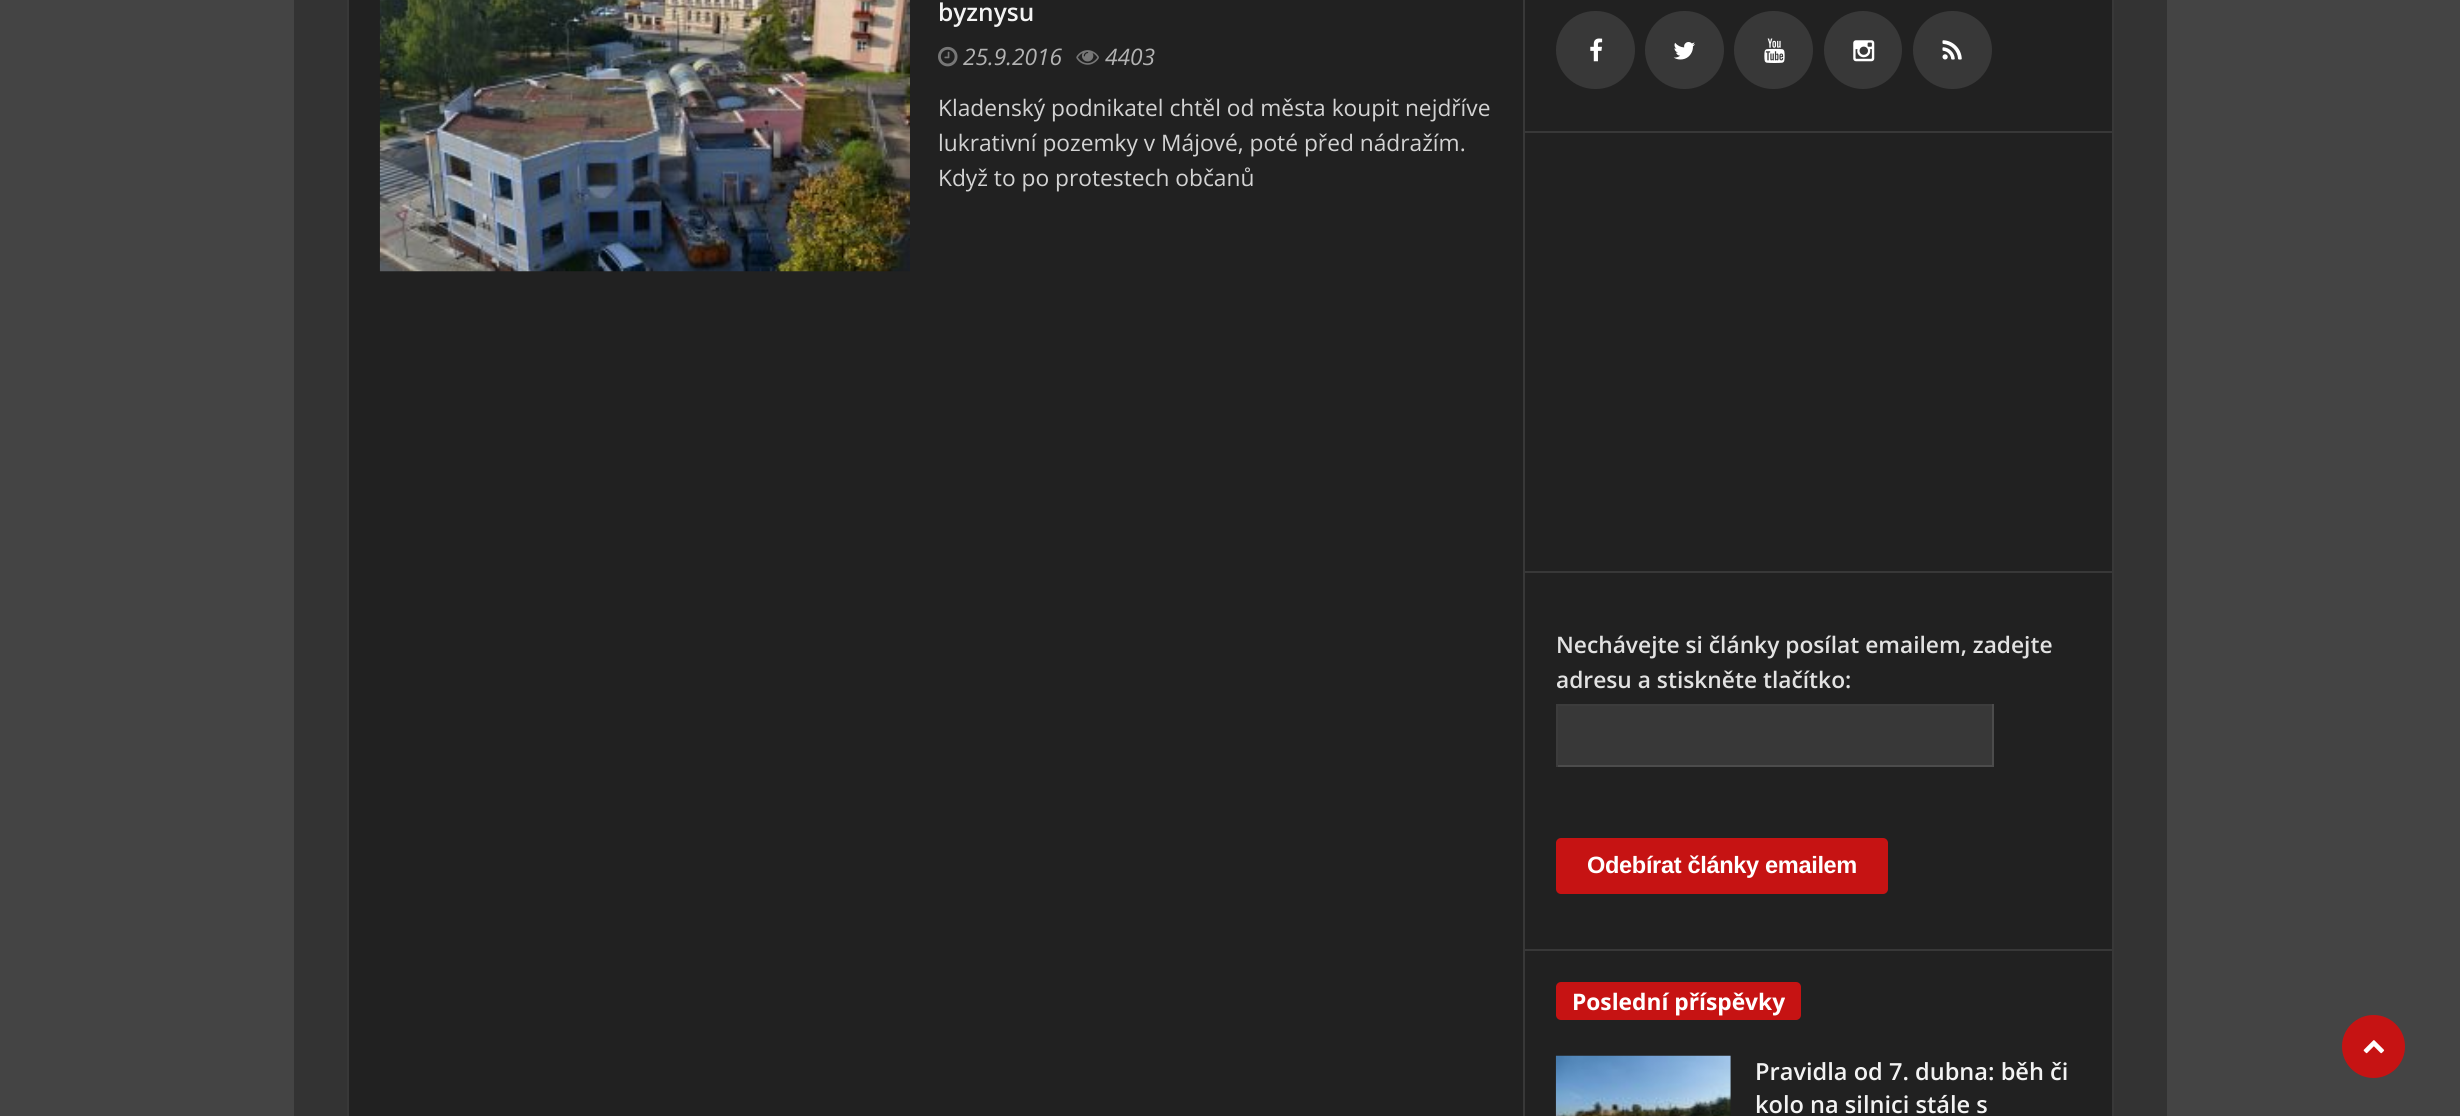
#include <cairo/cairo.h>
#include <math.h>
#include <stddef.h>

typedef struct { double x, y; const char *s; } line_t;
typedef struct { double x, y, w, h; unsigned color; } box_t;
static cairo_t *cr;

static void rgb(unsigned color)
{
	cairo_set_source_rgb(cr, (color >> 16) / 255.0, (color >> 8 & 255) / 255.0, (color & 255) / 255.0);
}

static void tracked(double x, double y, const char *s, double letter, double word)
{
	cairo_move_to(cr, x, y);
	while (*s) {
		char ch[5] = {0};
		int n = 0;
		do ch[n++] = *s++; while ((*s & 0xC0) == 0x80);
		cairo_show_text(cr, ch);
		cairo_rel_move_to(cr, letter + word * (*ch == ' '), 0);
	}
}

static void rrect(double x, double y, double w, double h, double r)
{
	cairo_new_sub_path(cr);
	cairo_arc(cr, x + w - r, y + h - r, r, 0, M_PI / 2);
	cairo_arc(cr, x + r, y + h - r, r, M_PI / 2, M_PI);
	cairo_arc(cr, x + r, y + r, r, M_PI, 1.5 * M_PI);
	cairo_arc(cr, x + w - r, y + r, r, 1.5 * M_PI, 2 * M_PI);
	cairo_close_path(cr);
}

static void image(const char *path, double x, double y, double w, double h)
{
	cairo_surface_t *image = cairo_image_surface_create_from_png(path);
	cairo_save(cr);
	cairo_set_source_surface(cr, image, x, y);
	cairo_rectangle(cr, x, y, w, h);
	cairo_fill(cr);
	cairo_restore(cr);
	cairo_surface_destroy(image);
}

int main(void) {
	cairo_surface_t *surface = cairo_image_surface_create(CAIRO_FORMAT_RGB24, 2460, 1116);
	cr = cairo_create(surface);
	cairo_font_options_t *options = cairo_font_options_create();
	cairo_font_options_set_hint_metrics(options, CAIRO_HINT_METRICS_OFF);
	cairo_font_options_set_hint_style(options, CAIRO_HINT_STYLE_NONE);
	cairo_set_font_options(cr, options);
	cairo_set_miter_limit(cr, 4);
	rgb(0x444444);
	cairo_paint(cr);
	{
		static const box_t items[] = {
			{294, 0, 1873, 1116, 0x333333},
			{349, 0, 1763, 1116, 0x212121},
			{2112, 0, 2, 1116, 0x383838},
			{347, 0, 2, 1116, 0x383838},
		};
		for (size_t i = 0; i < sizeof items / sizeof *items; i++) {
			rgb(items[i].color);
			cairo_rectangle(cr, items[i].x, items[i].y, items[i].w, items[i].h);
			cairo_fill(cr);
		}
	}
	image("img/1.png", 379, 0, 531, 272);
	image("img/2.png", 938, 46, 20, 21);
	image("img/3.png", 1076, 50, 23, 15);
	{
		static const box_t items[] = {
			{1524, 131, 588, 2, 0x383838},
			{1524, 571, 588, 2, 0x383838},
			{1524, 949, 588, 2, 0x383838},
			{1523, 0, 2, 1116, 0x383838},
		};
		for (size_t i = 0; i < sizeof items / sizeof *items; i++) {
			rgb(items[i].color);
			cairo_rectangle(cr, items[i].x, items[i].y, items[i].w, items[i].h);
			cairo_fill(cr);
		}
	}
	rrect(1556, 11, 79, 78, 39);
	cairo_fill(cr);
	image("img/4.png", 1590, 38, 13, 24);
	rrect(1645, 11, 79, 78, 39);
	cairo_fill(cr);
	image("img/5.png", 1673, 42, 22, 18);
	rrect(1734, 11, 79, 78, 39);
	cairo_fill(cr);
	image("img/6.png", 1764, 38, 21, 25);
	cairo_arc(cr, 1863, 50, 39, 0, 2 * M_PI);
	cairo_fill(cr);
	image("img/7.png", 1853, 40, 22, 22);
	rrect(1913, 11, 79, 78, 39);
	cairo_fill(cr);
	image("img/8.png", 1942, 40, 20, 20);
	{
		static const box_t items[] = {
			{1558, 706, 434, 59, 0x383838},
			{1556, 704, 437, 2, 0x3c3c3c},
			{1992, 704, 2, 63, 0x4c4c4c},
			{1556, 765, 437, 2, 0x4c4c4c},
			{1556, 704, 2, 63, 0x3c3c3c},
		};
		for (size_t i = 0; i < sizeof items / sizeof *items; i++) {
			rgb(items[i].color);
			cairo_rectangle(cr, items[i].x, items[i].y, items[i].w, items[i].h);
			cairo_fill(cr);
		}
	}
	rgb(0xc61313);
	rrect(1556, 838, 332, 56, 5);
	cairo_fill(cr);
	rrect(1556, 982, 245, 38, 5);
	cairo_fill(cr);
	image("img/9.png", 1555, 1055, 176, 61);
	cairo_arc(cr, 2373.5, 1046.5, 31.5, 0, 2 * M_PI);
	cairo_fill(cr);
	image("img/10.png", 2363, 1040, 22, 14);
	cairo_select_font_face(cr, "Open Sans SemiBold", CAIRO_FONT_SLANT_NORMAL, CAIRO_FONT_WEIGHT_NORMAL);
	cairo_set_font_size(cr, 24.5);
	rgb(0xf3f3f3);
	cairo_move_to(cr, 938, 21);
	cairo_show_text(cr, "byznysu");
	cairo_select_font_face(cr, "Open Sans", CAIRO_FONT_SLANT_ITALIC, CAIRO_FONT_WEIGHT_NORMAL);
	cairo_set_font_size(cr, 22.75);
	rgb(0xb3b3b3);
	cairo_move_to(cr, 963, 65);
	cairo_show_text(cr, "25.9.2016");
	cairo_move_to(cr, 1105, 65);
	cairo_show_text(cr, "4403");
	cairo_select_font_face(cr, "Open Sans", CAIRO_FONT_SLANT_NORMAL, CAIRO_FONT_WEIGHT_NORMAL);
	rgb(0xd3d3d3);
	{
		static const line_t items[] = {
			{938, 116, "Kladenský podnikatel chtěl od města koupit nejdříve"},
			{938, 151, "lukrativní pozemky v Májové, poté před nádražím."},
			{938, 186, "Když to po protestech občanů"},
		};
		for (size_t i = 0; i < sizeof items / sizeof *items; i++) {
			cairo_move_to(cr, items[i].x, items[i].y);
			cairo_show_text(cr, items[i].s);
		}
	}
	cairo_select_font_face(cr, "Open Sans SemiBold", CAIRO_FONT_SLANT_NORMAL, CAIRO_FONT_WEIGHT_NORMAL);
	rgb(0xe2e2e2);
	cairo_move_to(cr, 1556, 653);
	cairo_show_text(cr, "Nechávejte si články posílat emailem, zadejte");
	cairo_move_to(cr, 1556, 688);
	cairo_show_text(cr, "adresu a stiskněte tlačítko:");
	cairo_select_font_face(cr, "Liberation Sans", CAIRO_FONT_SLANT_NORMAL, CAIRO_FONT_WEIGHT_BOLD);
	cairo_set_font_size(cr, 23.6);
	rgb(0xffffff);
	tracked(1587, 873, "Odebírat články emailem", -0.35, 0);
	cairo_select_font_face(cr, "Open Sans", CAIRO_FONT_SLANT_NORMAL, CAIRO_FONT_WEIGHT_BOLD);
	cairo_set_font_size(cr, 22.75);
	cairo_move_to(cr, 1572, 1010);
	cairo_show_text(cr, "Poslední příspěvky");
	cairo_select_font_face(cr, "Open Sans SemiBold", CAIRO_FONT_SLANT_NORMAL, CAIRO_FONT_WEIGHT_NORMAL);
	cairo_set_font_size(cr, 23.6);
	rgb(0xf3f3f3);
	cairo_move_to(cr, 1755, 1080);
	cairo_show_text(cr, "Pravidla od 7. dubna: běh či");
	cairo_move_to(cr, 1755, 1113);
	cairo_show_text(cr, "kolo na silnici stále s");
	cairo_surface_write_to_png(surface, "page.png");
	cairo_font_options_destroy(options);
	cairo_destroy(cr);
	cairo_surface_destroy(surface);
	return 0;
}
